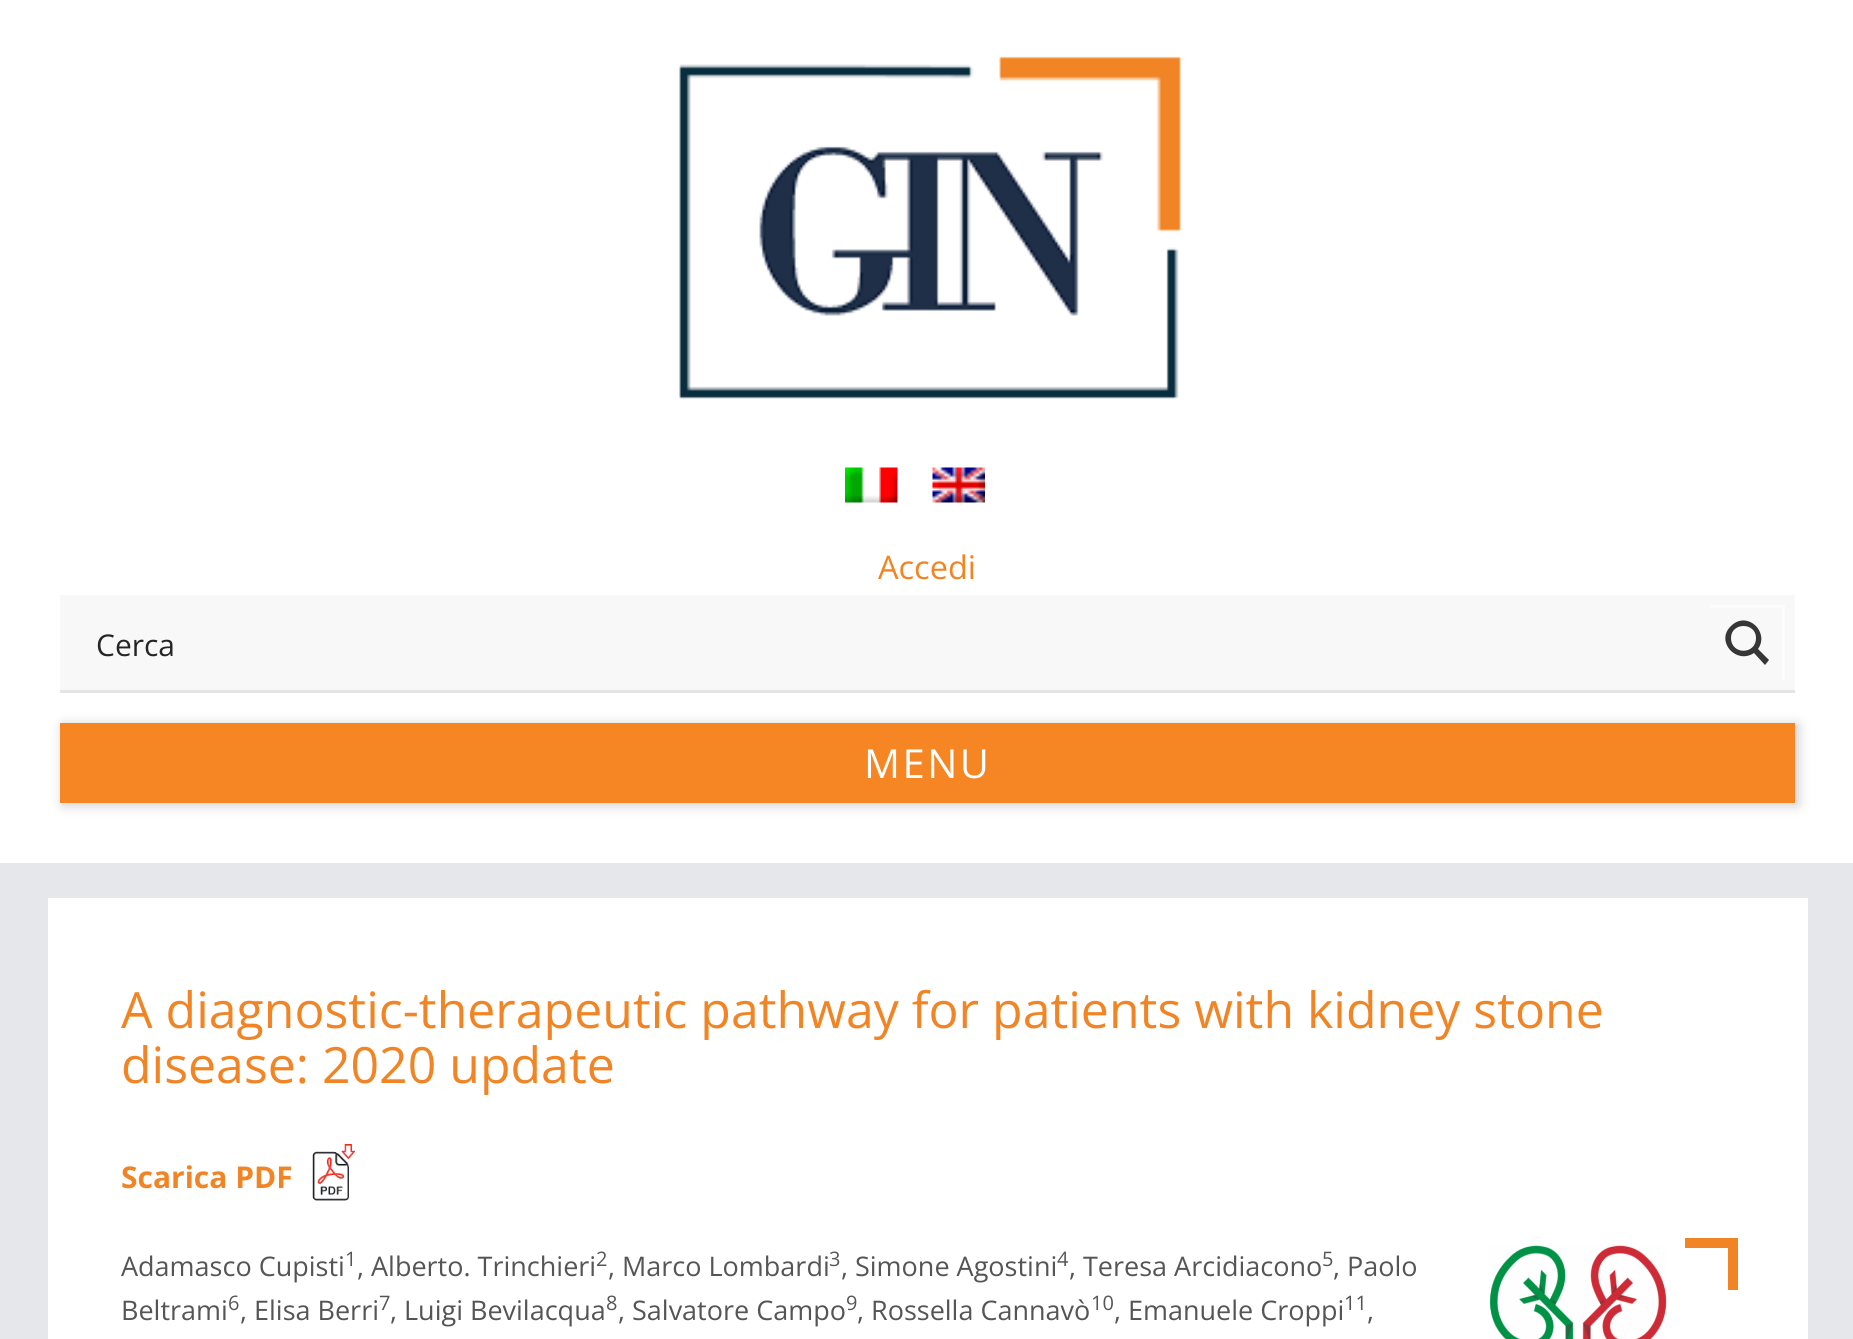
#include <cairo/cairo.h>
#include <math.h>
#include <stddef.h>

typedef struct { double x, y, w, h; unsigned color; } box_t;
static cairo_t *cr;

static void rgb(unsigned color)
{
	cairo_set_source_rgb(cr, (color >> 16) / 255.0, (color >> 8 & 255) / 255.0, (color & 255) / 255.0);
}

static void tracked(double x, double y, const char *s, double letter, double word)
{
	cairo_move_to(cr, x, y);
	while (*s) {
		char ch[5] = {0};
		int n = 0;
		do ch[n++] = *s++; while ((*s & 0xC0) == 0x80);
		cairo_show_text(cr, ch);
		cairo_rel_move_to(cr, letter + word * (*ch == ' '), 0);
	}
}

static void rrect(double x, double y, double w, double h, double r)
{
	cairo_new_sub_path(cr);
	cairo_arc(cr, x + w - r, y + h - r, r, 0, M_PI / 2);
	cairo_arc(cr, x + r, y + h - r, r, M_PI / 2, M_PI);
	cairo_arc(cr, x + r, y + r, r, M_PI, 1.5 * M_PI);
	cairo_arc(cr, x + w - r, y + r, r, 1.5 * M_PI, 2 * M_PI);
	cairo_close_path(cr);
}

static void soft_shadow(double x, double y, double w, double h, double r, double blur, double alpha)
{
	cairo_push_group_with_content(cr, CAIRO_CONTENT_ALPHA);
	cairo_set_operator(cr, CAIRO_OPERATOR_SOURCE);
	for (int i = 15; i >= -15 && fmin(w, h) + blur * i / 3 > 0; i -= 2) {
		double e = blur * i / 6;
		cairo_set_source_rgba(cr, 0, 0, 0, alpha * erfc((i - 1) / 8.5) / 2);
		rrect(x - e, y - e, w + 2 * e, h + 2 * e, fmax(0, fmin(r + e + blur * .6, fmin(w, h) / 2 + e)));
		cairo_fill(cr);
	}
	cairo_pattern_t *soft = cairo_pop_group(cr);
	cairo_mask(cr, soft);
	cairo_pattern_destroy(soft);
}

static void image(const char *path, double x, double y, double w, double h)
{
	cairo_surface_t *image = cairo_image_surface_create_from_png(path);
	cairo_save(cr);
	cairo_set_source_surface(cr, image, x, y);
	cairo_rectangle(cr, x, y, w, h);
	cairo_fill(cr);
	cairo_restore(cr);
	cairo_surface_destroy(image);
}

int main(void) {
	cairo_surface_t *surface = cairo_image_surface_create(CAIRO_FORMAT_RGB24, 1853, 1339);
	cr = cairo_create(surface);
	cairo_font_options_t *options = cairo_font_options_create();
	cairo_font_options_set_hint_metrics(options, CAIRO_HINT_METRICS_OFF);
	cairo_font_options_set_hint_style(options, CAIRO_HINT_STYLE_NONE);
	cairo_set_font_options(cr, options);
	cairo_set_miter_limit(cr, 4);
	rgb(0xffffff);
	cairo_paint(cr);
	image("img/1.png", 679, 56, 502, 343);
	image("img/2.png", 845, 467, 53, 36);
	image("img/3.png", 932, 467, 53, 36);
	rgb(0xe4e4e4);
	cairo_rectangle(cr, 60, 690, 1735, 3);
	cairo_fill(cr);
	rgb(0xf8f8f8);
	cairo_rectangle(cr, 60, 595, 1735, 95);
	cairo_fill(cr);
	cairo_save(cr);
	cairo_rectangle(cr, 1710, 605, 75, 75);
	cairo_clip(cr);
	rgb(0xfcfcfc);
	cairo_set_fill_rule(cr, CAIRO_FILL_RULE_EVEN_ODD);
	cairo_new_path(cr);
	cairo_move_to(cr, 1462, 358);
	cairo_line_to(cr, 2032, 358);
	cairo_line_to(cr, 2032, 928);
	cairo_line_to(cr, 1462, 928);
	cairo_close_path(cr);
	cairo_move_to(cr, 1708, 608);
	cairo_line_to(cr, 1782, 608);
	cairo_line_to(cr, 1782, 682);
	cairo_line_to(cr, 1708, 682);
	cairo_close_path(cr);
	cairo_fill(cr);
	cairo_restore(cr);
	rgb(0x363636);
	cairo_new_path(cr);
	cairo_move_to(cr, 1769, 660);
	cairo_line_to(cr, 1758, 649);
	cairo_curve_to(cr, 1770, 632, 1747, 610, 1731, 626);
	cairo_curve_to(cr, 1715, 641, 1736, 665, 1754, 653);
	cairo_line_to(cr, 1765, 665);
	cairo_close_path(cr);
	cairo_move_to(cr, 1731, 638);
	cairo_curve_to(cr, 1731, 622, 1756, 622, 1756, 638);
	cairo_curve_to(cr, 1756, 655, 1731, 655, 1731, 638);
	cairo_close_path(cr);
	cairo_fill(cr);
	rgb(0xcccccc);
	soft_shadow(63, 725, 1735, 80, 0, 6, 1);
	{
		static const box_t items[] = {
			{60, 723, 1735, 80, 0xf68623},
			{0, 863, 1853, 476, 0xe5e7ea},
			{48, 898, 1760, 441, 0xffffff},
		};
		for (size_t i = 0; i < sizeof items / sizeof *items; i++) {
			rgb(items[i].color);
			cairo_rectangle(cr, items[i].x, items[i].y, items[i].w, items[i].h);
			cairo_fill(cr);
		}
	}
	image("img/4.png", 312, 1143, 43, 58);
	image("img/5.png", 1489, 1245, 178, 94);
	rgb(0xf18525);
	cairo_rectangle(cr, 1685, 1238, 43, 10);
	cairo_fill(cr);
	cairo_rectangle(cr, 1728, 1238, 10, 52);
	cairo_fill(cr);
	cairo_select_font_face(cr, "Open Sans", CAIRO_FONT_SLANT_NORMAL, CAIRO_FONT_WEIGHT_NORMAL);
	cairo_set_font_size(cr, 32.5);
	cairo_move_to(cr, 878, 579);
	cairo_show_text(cr, "Accedi");
	cairo_set_font_size(cr, 30);
	rgb(0x252525);
	cairo_move_to(cr, 96, 656);
	cairo_show_text(cr, "Cerca");
	cairo_set_font_size(cr, 40);
	rgb(0xffffff);
	tracked(864, 778, "MENU", 2.5, 0);
	cairo_set_font_size(cr, 50);
	rgb(0xf18525);
	cairo_move_to(cr, 121, 1028);
	cairo_show_text(cr, "A diagnostic-therapeutic pathway for patients with kidney stone");
	cairo_move_to(cr, 121, 1083);
	cairo_show_text(cr, "disease: 2020 update");
	cairo_select_font_face(cr, "Open Sans", CAIRO_FONT_SLANT_NORMAL, CAIRO_FONT_WEIGHT_BOLD);
	cairo_set_font_size(cr, 30);
	cairo_move_to(cr, 121, 1188);
	cairo_show_text(cr, "Scarica PDF");
	cairo_select_font_face(cr, "Open Sans", CAIRO_FONT_SLANT_NORMAL, CAIRO_FONT_WEIGHT_NORMAL);
	cairo_set_font_size(cr, 27);
	rgb(0x555555);
	cairo_move_to(cr, 121, 1276);
	cairo_show_text(cr, "Adamasco Cupisti");
	cairo_set_font_size(cr, 20);
	cairo_move_to(cr, 345, 1266);
	cairo_show_text(cr, "1");
	cairo_set_font_size(cr, 27);
	cairo_move_to(cr, 357, 1276);
	cairo_show_text(cr, ", Alberto. Trinchieri");
	cairo_set_font_size(cr, 20);
	cairo_move_to(cr, 596, 1266);
	cairo_show_text(cr, "2");
	cairo_set_font_size(cr, 27);
	cairo_move_to(cr, 608, 1276);
	cairo_show_text(cr, ", Marco Lombardi");
	cairo_set_font_size(cr, 20);
	cairo_move_to(cr, 829, 1266);
	cairo_show_text(cr, "3");
	cairo_set_font_size(cr, 27);
	cairo_move_to(cr, 841, 1276);
	cairo_show_text(cr, ", Simone Agostini");
	cairo_set_font_size(cr, 20);
	cairo_move_to(cr, 1057, 1266);
	cairo_show_text(cr, "4");
	cairo_set_font_size(cr, 27);
	cairo_move_to(cr, 1069, 1276);
	cairo_show_text(cr, ", Teresa Arcidiacono");
	cairo_set_font_size(cr, 20);
	cairo_move_to(cr, 1322, 1266);
	cairo_show_text(cr, "5");
	cairo_set_font_size(cr, 27);
	cairo_move_to(cr, 1333, 1276);
	cairo_show_text(cr, ", Paolo");
	cairo_move_to(cr, 121, 1320);
	cairo_show_text(cr, "Beltrami");
	cairo_set_font_size(cr, 20);
	cairo_move_to(cr, 228, 1310);
	cairo_show_text(cr, "6");
	cairo_set_font_size(cr, 27);
	cairo_move_to(cr, 240, 1320);
	cairo_show_text(cr, ", Elisa Berri");
	cairo_set_font_size(cr, 20);
	cairo_move_to(cr, 379, 1310);
	cairo_show_text(cr, "7");
	cairo_set_font_size(cr, 27);
	cairo_move_to(cr, 390, 1320);
	cairo_show_text(cr, ", Luigi Bevilacqua");
	cairo_set_font_size(cr, 20);
	cairo_move_to(cr, 606, 1310);
	cairo_show_text(cr, "8");
	cairo_set_font_size(cr, 27);
	cairo_move_to(cr, 618, 1320);
	cairo_show_text(cr, ", Salvatore Campo");
	cairo_set_font_size(cr, 20);
	cairo_move_to(cr, 846, 1310);
	cairo_show_text(cr, "9");
	cairo_set_font_size(cr, 27);
	cairo_move_to(cr, 857, 1320);
	cairo_show_text(cr, ", Rossella Cannavò");
	cairo_set_font_size(cr, 20);
	cairo_move_to(cr, 1091, 1310);
	cairo_show_text(cr, "10");
	cairo_set_font_size(cr, 27);
	cairo_move_to(cr, 1114, 1320);
	cairo_show_text(cr, ", Emanuele Croppi");
	cairo_set_font_size(cr, 20);
	cairo_move_to(cr, 1344, 1310);
	cairo_show_text(cr, "11");
	cairo_set_font_size(cr, 27);
	cairo_move_to(cr, 1367, 1320);
	cairo_show_text(cr, ",");
	cairo_surface_write_to_png(surface, "page.png");
	cairo_font_options_destroy(options);
	cairo_destroy(cr);
	cairo_surface_destroy(surface);
	return 0;
}
